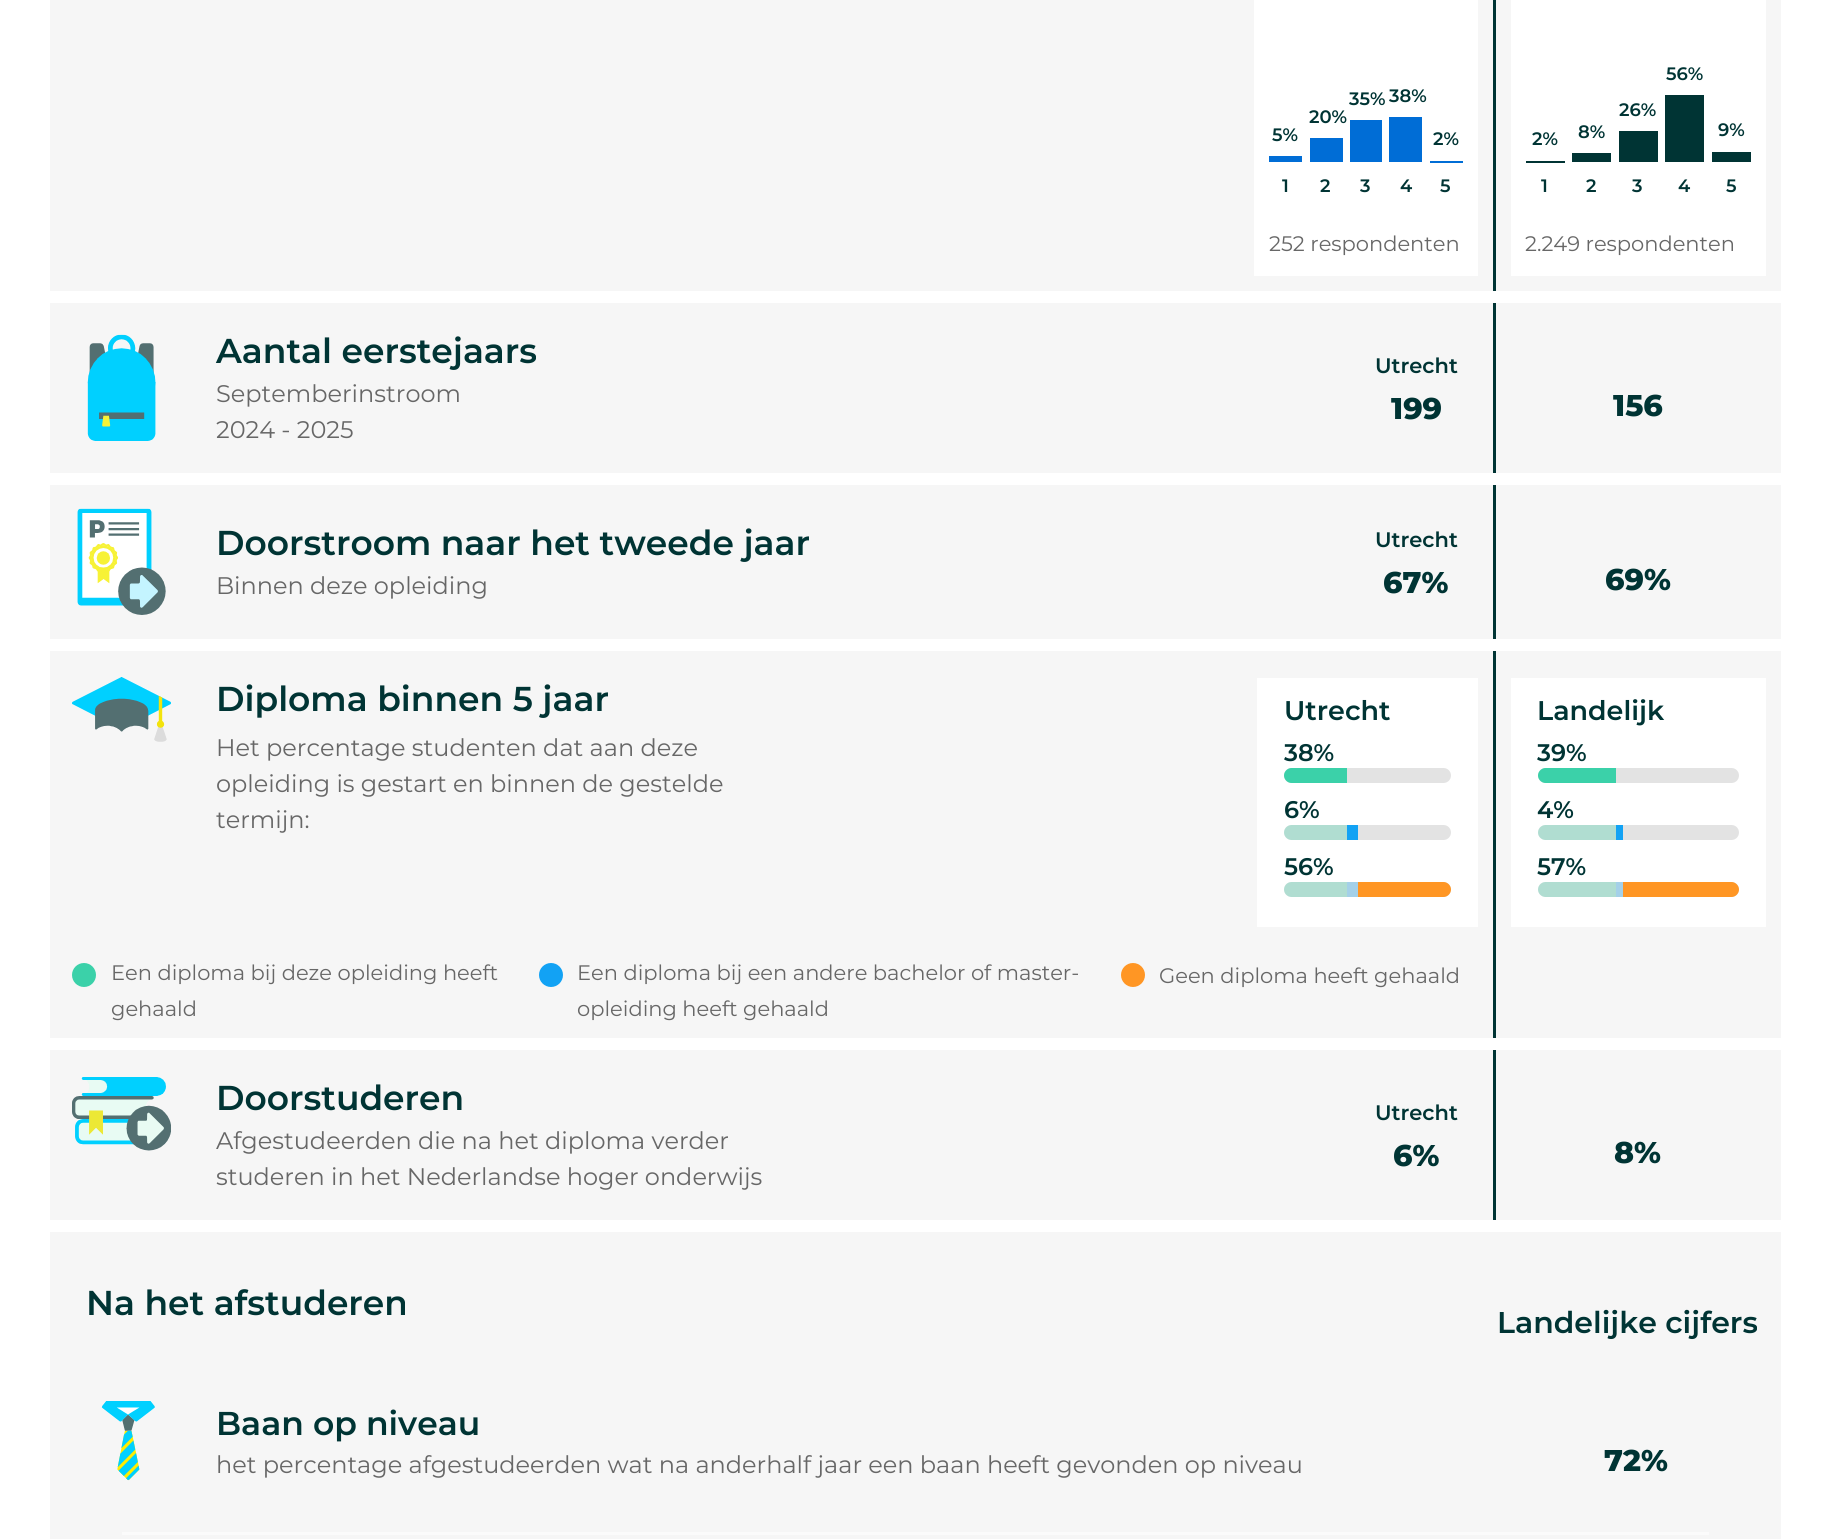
#include <cairo/cairo.h>
#include <math.h>
#include <stddef.h>

typedef struct { double x, y; const char *s; } line_t;
typedef struct { double x, y, w, h; unsigned color; } box_t;
static cairo_t *cr;

static void rgb(unsigned color)
{
	cairo_set_source_rgb(cr, (color >> 16) / 255.0, (color >> 8 & 255) / 255.0, (color & 255) / 255.0);
}

static void rrect(double x, double y, double w, double h, double r)
{
	cairo_new_sub_path(cr);
	cairo_arc(cr, x + w - r, y + h - r, r, 0, M_PI / 2);
	cairo_arc(cr, x + r, y + h - r, r, M_PI / 2, M_PI);
	cairo_arc(cr, x + r, y + r, r, M_PI, 1.5 * M_PI);
	cairo_arc(cr, x + w - r, y + r, r, 1.5 * M_PI, 2 * M_PI);
	cairo_close_path(cr);
}

static void image(const char *path, double x, double y, double w, double h)
{
	cairo_surface_t *image = cairo_image_surface_create_from_png(path);
	cairo_save(cr);
	cairo_set_source_surface(cr, image, x, y);
	cairo_rectangle(cr, x, y, w, h);
	cairo_fill(cr);
	cairo_restore(cr);
	cairo_surface_destroy(image);
}

int main(void) {
	cairo_surface_t *surface = cairo_image_surface_create(CAIRO_FORMAT_RGB24, 1830, 1539);
	cr = cairo_create(surface);
	cairo_font_options_t *options = cairo_font_options_create();
	cairo_font_options_set_hint_metrics(options, CAIRO_HINT_METRICS_OFF);
	cairo_font_options_set_hint_style(options, CAIRO_HINT_STYLE_NONE);
	cairo_set_font_options(cr, options);
	cairo_set_miter_limit(cr, 4);
	rgb(0xffffff);
	cairo_paint(cr);
	{
		static const box_t items[] = {
			{50, 0, 1731, 291, 0xf6f6f6},
			{1254, 0, 224, 276, 0xffffff},
			{1269, 156, 33, 6, 0x006dd6},
			{1310, 138, 33, 24, 0x006dd6},
			{1350, 120, 32, 42, 0x006dd6},
			{1389, 117, 33, 45, 0x006dd6},
			{1430, 161, 33, 2, 0x006dd6},
			{1493, 0, 3, 291, 0x003434},
			{1511, 0, 255, 276, 0xffffff},
			{1526, 161, 39, 2, 0x003434},
			{1572, 153, 39, 9, 0x003434},
			{1619, 131, 39, 31, 0x003434},
			{1665, 95, 39, 67, 0x003434},
			{1712, 152, 39, 10, 0x003434},
			{50, 303, 1731, 170, 0xf6f6f6},
		};
		for (size_t i = 0; i < sizeof items / sizeof *items; i++) {
			rgb(items[i].color);
			cairo_rectangle(cr, items[i].x, items[i].y, items[i].w, items[i].h);
			cairo_fill(cr);
		}
	}
	image("img/1.png", 87, 334, 69, 107);
	rgb(0x003434);
	cairo_rectangle(cr, 1493, 303, 3, 170);
	cairo_fill(cr);
	rgb(0xf6f6f6);
	cairo_rectangle(cr, 50, 485, 1731, 154);
	cairo_fill(cr);
	image("img/2.png", 77, 508, 89, 107);
	rgb(0x003434);
	cairo_rectangle(cr, 1493, 485, 3, 154);
	cairo_fill(cr);
	rgb(0xf6f6f6);
	cairo_rectangle(cr, 50, 651, 1731, 387);
	cairo_fill(cr);
	image("img/3.png", 72, 677, 99, 65);
	rgb(0xffffff);
	cairo_rectangle(cr, 1257, 678, 221, 249);
	cairo_fill(cr);
	rgb(0xe3e3e3);
	rrect(1284, 768, 167, 15, 7.5);
	cairo_fill(cr);
	rgb(0x3bd1a9);
	cairo_new_path(cr);
	cairo_move_to(cr, 1291.5, 768);
	cairo_line_to(cr, 1347, 768);
	cairo_line_to(cr, 1347, 783);
	cairo_line_to(cr, 1291.5, 783);
	cairo_curve_to(cr, 1287.5, 783, 1284, 779.5, 1284, 775.5);
	cairo_curve_to(cr, 1284, 771.5, 1287.5, 768, 1291.5, 768);
	cairo_close_path(cr);
	cairo_fill(cr);
	rgb(0xe3e3e3);
	rrect(1284, 825, 167, 15, 7.5);
	cairo_fill(cr);
	cairo_set_source_rgba(cr, 0.231, 0.82, 0.663, 0.3);
	cairo_new_path(cr);
	cairo_move_to(cr, 1291.5, 825);
	cairo_line_to(cr, 1347, 825);
	cairo_line_to(cr, 1347, 840);
	cairo_line_to(cr, 1291.5, 840);
	cairo_curve_to(cr, 1287.5, 840, 1284, 836.5, 1284, 832.5);
	cairo_curve_to(cr, 1284, 828.5, 1287.5, 825, 1291.5, 825);
	cairo_close_path(cr);
	cairo_fill(cr);
	rgb(0x12a2f4);
	cairo_rectangle(cr, 1347, 825, 11, 15);
	cairo_fill(cr);
	rgb(0xe3e3e3);
	rrect(1284, 882, 167, 15, 7.5);
	cairo_fill(cr);
	cairo_set_source_rgba(cr, 0.231, 0.82, 0.663, 0.3);
	cairo_new_path(cr);
	cairo_move_to(cr, 1291.5, 882);
	cairo_line_to(cr, 1347, 882);
	cairo_line_to(cr, 1347, 897);
	cairo_line_to(cr, 1291.5, 897);
	cairo_curve_to(cr, 1287.5, 897, 1284, 893.5, 1284, 889.5);
	cairo_curve_to(cr, 1284, 885.5, 1287.5, 882, 1291.5, 882);
	cairo_close_path(cr);
	cairo_fill(cr);
	rgb(0xa4d0e8);
	cairo_rectangle(cr, 1347, 882, 11, 15);
	cairo_fill(cr);
	rgb(0xff9624);
	cairo_new_path(cr);
	cairo_move_to(cr, 1358, 882);
	cairo_line_to(cr, 1443.5, 882);
	cairo_curve_to(cr, 1447.5, 882, 1451, 885.5, 1451, 889.5);
	cairo_curve_to(cr, 1451, 893.5, 1447.5, 897, 1443.5, 897);
	cairo_line_to(cr, 1358, 897);
	cairo_close_path(cr);
	cairo_fill(cr);
	rgb(0x003434);
	cairo_rectangle(cr, 1493, 651, 3, 387);
	cairo_fill(cr);
	rgb(0xffffff);
	cairo_rectangle(cr, 1511, 678, 255, 249);
	cairo_fill(cr);
	rgb(0xe3e3e3);
	rrect(1538, 768, 201, 15, 7.5);
	cairo_fill(cr);
	rgb(0x3bd1a9);
	cairo_new_path(cr);
	cairo_move_to(cr, 1545.5, 768);
	cairo_line_to(cr, 1616, 768);
	cairo_line_to(cr, 1616, 783);
	cairo_line_to(cr, 1545.5, 783);
	cairo_curve_to(cr, 1541.5, 783, 1538, 779.5, 1538, 775.5);
	cairo_curve_to(cr, 1538, 771.5, 1541.5, 768, 1545.5, 768);
	cairo_close_path(cr);
	cairo_fill(cr);
	rgb(0xe3e3e3);
	rrect(1538, 825, 201, 15, 7.5);
	cairo_fill(cr);
	cairo_set_source_rgba(cr, 0.231, 0.82, 0.663, 0.3);
	cairo_new_path(cr);
	cairo_move_to(cr, 1545.5, 825);
	cairo_line_to(cr, 1616, 825);
	cairo_line_to(cr, 1616, 840);
	cairo_line_to(cr, 1545.5, 840);
	cairo_curve_to(cr, 1541.5, 840, 1538, 836.5, 1538, 832.5);
	cairo_curve_to(cr, 1538, 828.5, 1541.5, 825, 1545.5, 825);
	cairo_close_path(cr);
	cairo_fill(cr);
	rgb(0x12a2f4);
	cairo_rectangle(cr, 1616, 825, 7, 15);
	cairo_fill(cr);
	rgb(0xe3e3e3);
	rrect(1538, 882, 201, 15, 7.5);
	cairo_fill(cr);
	cairo_set_source_rgba(cr, 0.231, 0.82, 0.663, 0.3);
	cairo_new_path(cr);
	cairo_move_to(cr, 1545.5, 882);
	cairo_line_to(cr, 1616, 882);
	cairo_line_to(cr, 1616, 897);
	cairo_line_to(cr, 1545.5, 897);
	cairo_curve_to(cr, 1541.5, 897, 1538, 893.5, 1538, 889.5);
	cairo_curve_to(cr, 1538, 885.5, 1541.5, 882, 1545.5, 882);
	cairo_close_path(cr);
	cairo_fill(cr);
	rgb(0xa4d0e8);
	cairo_rectangle(cr, 1616, 882, 7, 15);
	cairo_fill(cr);
	rgb(0xff9624);
	cairo_new_path(cr);
	cairo_move_to(cr, 1623, 882);
	cairo_line_to(cr, 1731.5, 882);
	cairo_curve_to(cr, 1735.5, 882, 1739, 885.5, 1739, 889.5);
	cairo_curve_to(cr, 1739, 893.5, 1735.5, 897, 1731.5, 897);
	cairo_line_to(cr, 1623, 897);
	cairo_close_path(cr);
	cairo_fill(cr);
	rgb(0x3bd1a9);
	cairo_arc(cr, 84, 975, 12, 0, 2 * M_PI);
	cairo_fill(cr);
	rgb(0x12a2f4);
	cairo_arc(cr, 551, 975, 12, 0, 2 * M_PI);
	cairo_fill(cr);
	rgb(0xff9624);
	cairo_arc(cr, 1133, 975, 12, 0, 2 * M_PI);
	cairo_fill(cr);
	rgb(0xf6f6f6);
	cairo_rectangle(cr, 50, 1050, 1731, 170);
	cairo_fill(cr);
	image("img/4.png", 72, 1077, 99, 74);
	rgb(0x003434);
	cairo_rectangle(cr, 1493, 1050, 3, 170);
	cairo_fill(cr);
	rgb(0xf6f6f6);
	cairo_rectangle(cr, 50, 1232, 1731, 307);
	cairo_fill(cr);
	image("img/5.png", 101, 1401, 54, 80);
	rgb(0xfbfbfb);
	cairo_rectangle(cr, 122, 1532, 1587, 3);
	cairo_fill(cr);
	cairo_select_font_face(cr, "Montserrat SemiBold", CAIRO_FONT_SLANT_NORMAL, CAIRO_FONT_WEIGHT_NORMAL);
	cairo_set_font_size(cr, 18);
	rgb(0x003434);
	{
		static const line_t items[] = {
			{1272, 141, "5%"},
			{1282, 192, "1"},
			{1309, 123, "20%"},
			{1320, 192, "2"},
			{1349, 105, "35%"},
			{1360, 192, "3"},
			{1389, 102, "38%"},
			{1400, 192, "4"},
			{1433, 145, "2%"},
			{1440, 192, "5"},
		};
		for (size_t i = 0; i < sizeof items / sizeof *items; i++) {
			cairo_move_to(cr, items[i].x, items[i].y);
			cairo_show_text(cr, items[i].s);
		}
	}
	cairo_select_font_face(cr, "Montserrat", CAIRO_FONT_SLANT_NORMAL, CAIRO_FONT_WEIGHT_NORMAL);
	cairo_set_font_size(cr, 21);
	rgb(0x676767);
	cairo_move_to(cr, 1269, 251);
	cairo_show_text(cr, "252 respondenten");
	cairo_select_font_face(cr, "Montserrat SemiBold", CAIRO_FONT_SLANT_NORMAL, CAIRO_FONT_WEIGHT_NORMAL);
	cairo_set_font_size(cr, 18);
	rgb(0x003434);
	{
		static const line_t items[] = {
			{1532, 145, "2%"},
			{1541, 192, "1"},
			{1578, 138, "8%"},
			{1586, 192, "2"},
			{1619, 116, "26%"},
			{1632, 192, "3"},
			{1666, 80, "56%"},
			{1678, 192, "4"},
			{1718, 136, "9%"},
			{1726, 192, "5"},
		};
		for (size_t i = 0; i < sizeof items / sizeof *items; i++) {
			cairo_move_to(cr, items[i].x, items[i].y);
			cairo_show_text(cr, items[i].s);
		}
	}
	cairo_select_font_face(cr, "Montserrat", CAIRO_FONT_SLANT_NORMAL, CAIRO_FONT_WEIGHT_NORMAL);
	cairo_set_font_size(cr, 21);
	rgb(0x676767);
	cairo_move_to(cr, 1525, 251);
	cairo_show_text(cr, "2.249 respondenten");
	cairo_select_font_face(cr, "Montserrat SemiBold", CAIRO_FONT_SLANT_NORMAL, CAIRO_FONT_WEIGHT_NORMAL);
	cairo_set_font_size(cr, 34.5);
	rgb(0x003434);
	cairo_move_to(cr, 216, 363);
	cairo_show_text(cr, "Aantal eerstejaars");
	cairo_select_font_face(cr, "Montserrat", CAIRO_FONT_SLANT_NORMAL, CAIRO_FONT_WEIGHT_NORMAL);
	cairo_set_font_size(cr, 24);
	rgb(0x676767);
	cairo_move_to(cr, 216, 402);
	cairo_show_text(cr, "Septemberinstroom");
	cairo_move_to(cr, 216, 438);
	cairo_show_text(cr, "2024 - 2025");
	cairo_select_font_face(cr, "Montserrat SemiBold", CAIRO_FONT_SLANT_NORMAL, CAIRO_FONT_WEIGHT_NORMAL);
	cairo_set_font_size(cr, 21);
	rgb(0x003434);
	cairo_move_to(cr, 1375, 373);
	cairo_show_text(cr, "Utrecht");
	cairo_select_font_face(cr, "Montserrat ExtraBold", CAIRO_FONT_SLANT_NORMAL, CAIRO_FONT_WEIGHT_NORMAL);
	cairo_set_font_size(cr, 30);
	cairo_move_to(cr, 1391, 419);
	cairo_show_text(cr, "199");
	cairo_move_to(cr, 1613, 416);
	cairo_show_text(cr, "156");
	cairo_select_font_face(cr, "Montserrat SemiBold", CAIRO_FONT_SLANT_NORMAL, CAIRO_FONT_WEIGHT_NORMAL);
	cairo_set_font_size(cr, 34.5);
	cairo_move_to(cr, 216, 555);
	cairo_show_text(cr, "Doorstroom naar het tweede jaar");
	cairo_select_font_face(cr, "Montserrat", CAIRO_FONT_SLANT_NORMAL, CAIRO_FONT_WEIGHT_NORMAL);
	cairo_set_font_size(cr, 24);
	rgb(0x676767);
	cairo_move_to(cr, 216, 594);
	cairo_show_text(cr, "Binnen deze opleiding");
	cairo_select_font_face(cr, "Montserrat SemiBold", CAIRO_FONT_SLANT_NORMAL, CAIRO_FONT_WEIGHT_NORMAL);
	cairo_set_font_size(cr, 21);
	rgb(0x003434);
	cairo_move_to(cr, 1375, 547);
	cairo_show_text(cr, "Utrecht");
	cairo_select_font_face(cr, "Montserrat ExtraBold", CAIRO_FONT_SLANT_NORMAL, CAIRO_FONT_WEIGHT_NORMAL);
	cairo_set_font_size(cr, 30);
	cairo_move_to(cr, 1383, 593);
	cairo_show_text(cr, "67%");
	cairo_move_to(cr, 1605, 590);
	cairo_show_text(cr, "69%");
	cairo_select_font_face(cr, "Montserrat SemiBold", CAIRO_FONT_SLANT_NORMAL, CAIRO_FONT_WEIGHT_NORMAL);
	cairo_set_font_size(cr, 34.5);
	cairo_move_to(cr, 216, 711);
	cairo_show_text(cr, "Diploma binnen 5 jaar");
	cairo_select_font_face(cr, "Montserrat", CAIRO_FONT_SLANT_NORMAL, CAIRO_FONT_WEIGHT_NORMAL);
	cairo_set_font_size(cr, 24);
	rgb(0x676767);
	{
		static const line_t items[] = {
			{216, 756, "Het percentage studenten dat aan deze"},
			{216, 792, "opleiding is gestart en binnen de gestelde"},
			{216, 828, "termijn:"},
		};
		for (size_t i = 0; i < sizeof items / sizeof *items; i++) {
			cairo_move_to(cr, items[i].x, items[i].y);
			cairo_show_text(cr, items[i].s);
		}
	}
	cairo_select_font_face(cr, "Montserrat SemiBold", CAIRO_FONT_SLANT_NORMAL, CAIRO_FONT_WEIGHT_NORMAL);
	cairo_set_font_size(cr, 27);
	rgb(0x003434);
	cairo_move_to(cr, 1284, 720);
	cairo_show_text(cr, "Utrecht");
	cairo_set_font_size(cr, 24);
	{
		static const line_t items[] = {
			{1284, 761, "38%"},
			{1284, 818, "6%"},
			{1284, 875, "56%"},
		};
		for (size_t i = 0; i < sizeof items / sizeof *items; i++) {
			cairo_move_to(cr, items[i].x, items[i].y);
			cairo_show_text(cr, items[i].s);
		}
	}
	cairo_set_font_size(cr, 27);
	cairo_move_to(cr, 1537, 720);
	cairo_show_text(cr, "Landelijk");
	cairo_set_font_size(cr, 24);
	{
		static const line_t items[] = {
			{1537, 761, "39%"},
			{1537, 818, "4%"},
			{1537, 875, "57%"},
		};
		for (size_t i = 0; i < sizeof items / sizeof *items; i++) {
			cairo_move_to(cr, items[i].x, items[i].y);
			cairo_show_text(cr, items[i].s);
		}
	}
	cairo_select_font_face(cr, "Montserrat", CAIRO_FONT_SLANT_NORMAL, CAIRO_FONT_WEIGHT_NORMAL);
	cairo_set_font_size(cr, 21);
	rgb(0x676767);
	{
		static const line_t items[] = {
			{111, 980, "Een diploma bij deze opleiding heeft"},
			{111, 1016, "gehaald"},
			{577, 980, "Een diploma bij een andere bachelor of master-"},
			{577, 1016, "opleiding heeft gehaald"},
			{1159, 983, "Geen diploma heeft gehaald"},
		};
		for (size_t i = 0; i < sizeof items / sizeof *items; i++) {
			cairo_move_to(cr, items[i].x, items[i].y);
			cairo_show_text(cr, items[i].s);
		}
	}
	cairo_select_font_face(cr, "Montserrat SemiBold", CAIRO_FONT_SLANT_NORMAL, CAIRO_FONT_WEIGHT_NORMAL);
	cairo_set_font_size(cr, 34.5);
	rgb(0x003434);
	cairo_move_to(cr, 216, 1110);
	cairo_show_text(cr, "Doorstuderen");
	cairo_select_font_face(cr, "Montserrat", CAIRO_FONT_SLANT_NORMAL, CAIRO_FONT_WEIGHT_NORMAL);
	cairo_set_font_size(cr, 24);
	rgb(0x676767);
	cairo_move_to(cr, 216, 1149);
	cairo_show_text(cr, "Afgestudeerden die na het diploma verder");
	cairo_move_to(cr, 216, 1185);
	cairo_show_text(cr, "studeren in het Nederlandse hoger onderwijs");
	cairo_select_font_face(cr, "Montserrat SemiBold", CAIRO_FONT_SLANT_NORMAL, CAIRO_FONT_WEIGHT_NORMAL);
	cairo_set_font_size(cr, 21);
	rgb(0x003434);
	cairo_move_to(cr, 1375, 1120);
	cairo_show_text(cr, "Utrecht");
	cairo_select_font_face(cr, "Montserrat ExtraBold", CAIRO_FONT_SLANT_NORMAL, CAIRO_FONT_WEIGHT_NORMAL);
	cairo_set_font_size(cr, 30);
	cairo_move_to(cr, 1393, 1166);
	cairo_show_text(cr, "6%");
	cairo_move_to(cr, 1614, 1163);
	cairo_show_text(cr, "8%");
	cairo_select_font_face(cr, "Montserrat SemiBold", CAIRO_FONT_SLANT_NORMAL, CAIRO_FONT_WEIGHT_NORMAL);
	cairo_set_font_size(cr, 34.5);
	cairo_move_to(cr, 86, 1315);
	cairo_show_text(cr, "Na het afstuderen");
	cairo_set_font_size(cr, 30);
	cairo_move_to(cr, 1497, 1333);
	cairo_show_text(cr, "Landelijke cijfers");
	cairo_set_font_size(cr, 33);
	cairo_move_to(cr, 216, 1435);
	cairo_show_text(cr, "Baan op niveau");
	cairo_select_font_face(cr, "Montserrat", CAIRO_FONT_SLANT_NORMAL, CAIRO_FONT_WEIGHT_NORMAL);
	cairo_set_font_size(cr, 24);
	rgb(0x676767);
	cairo_move_to(cr, 216, 1473);
	cairo_show_text(cr, "het percentage afgestudeerden wat na anderhalf jaar een baan heeft gevonden op niveau");
	cairo_select_font_face(cr, "Montserrat ExtraBold", CAIRO_FONT_SLANT_NORMAL, CAIRO_FONT_WEIGHT_NORMAL);
	cairo_set_font_size(cr, 30);
	rgb(0x003434);
	cairo_move_to(cr, 1604, 1471);
	cairo_show_text(cr, "72%");
	cairo_surface_write_to_png(surface, "page.png");
	cairo_font_options_destroy(options);
	cairo_destroy(cr);
	cairo_surface_destroy(surface);
	return 0;
}
